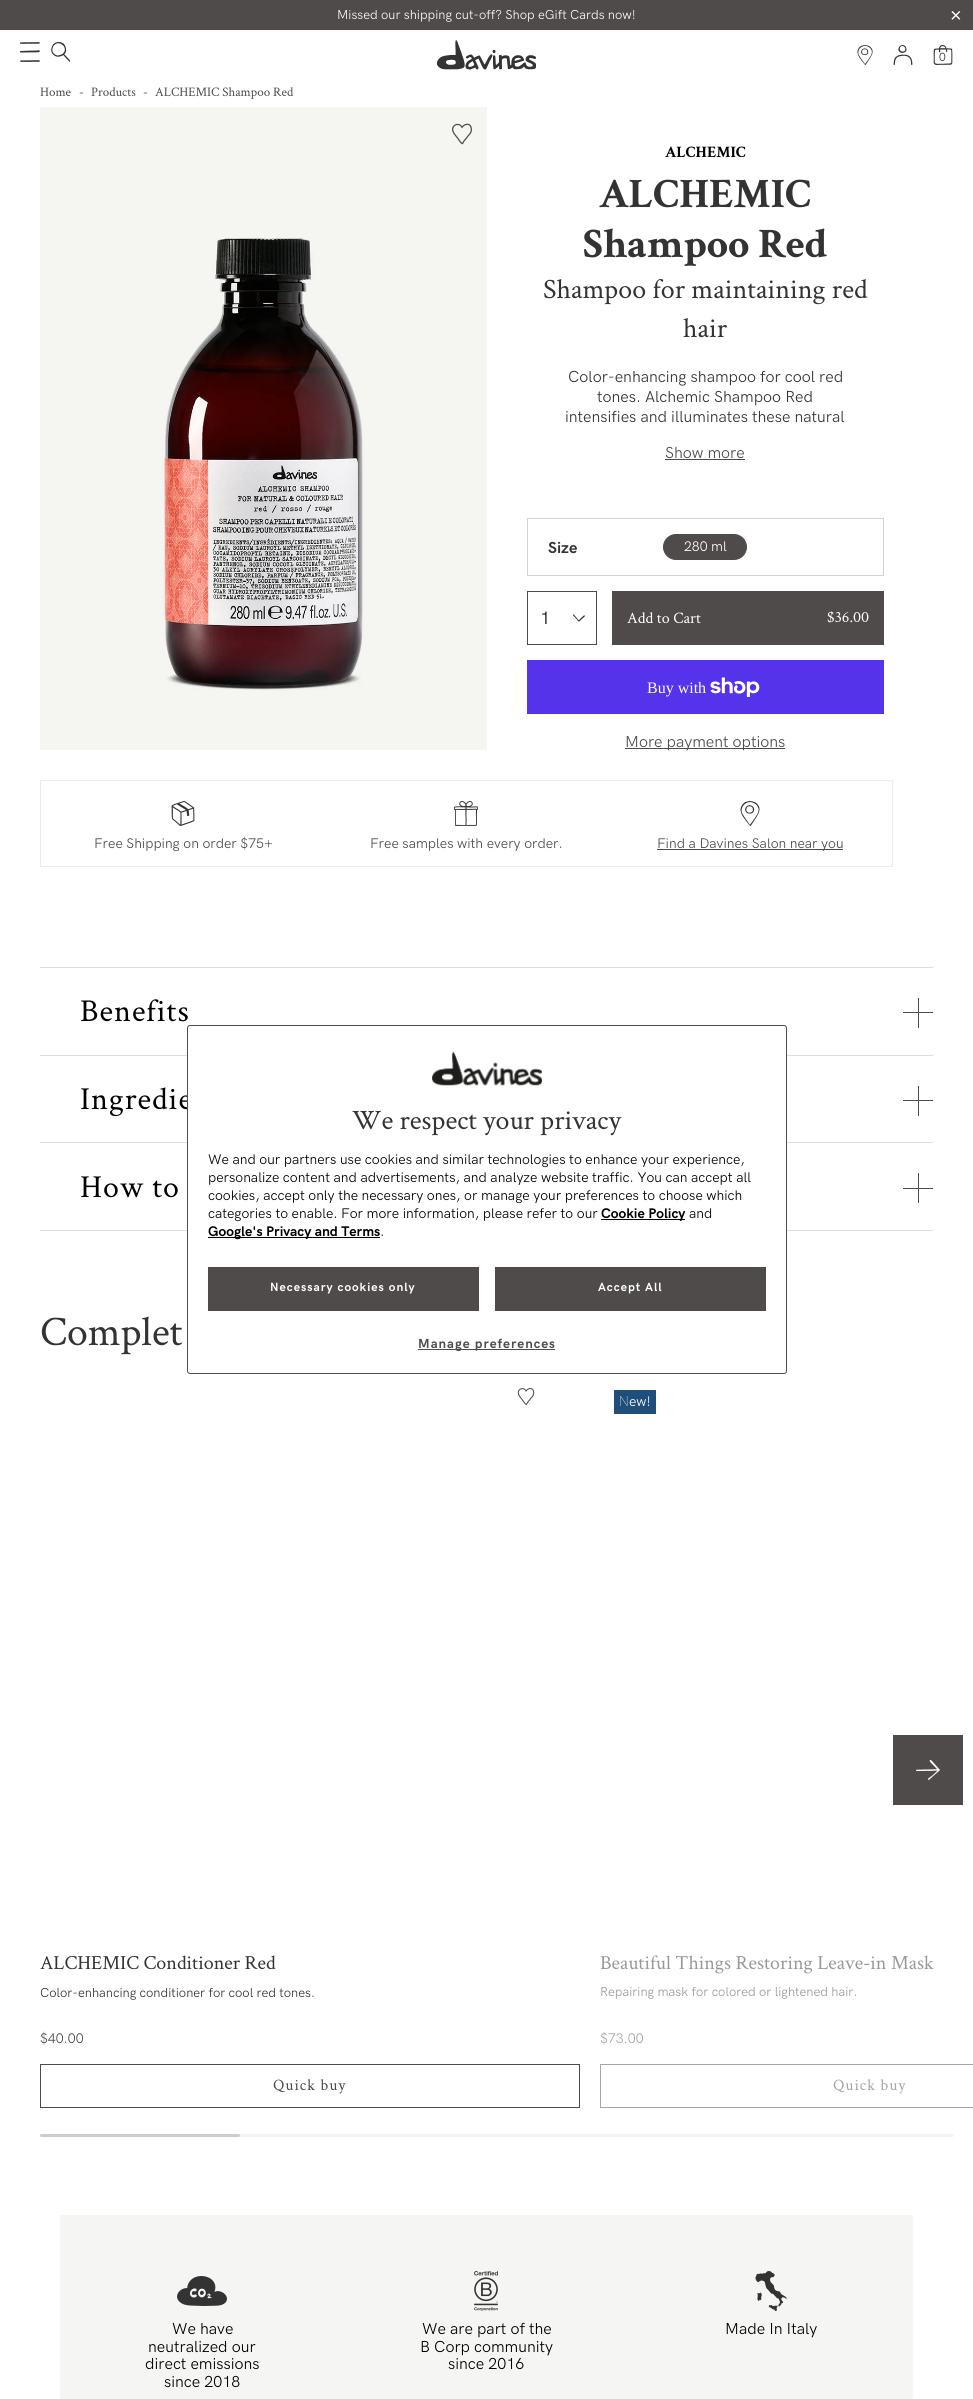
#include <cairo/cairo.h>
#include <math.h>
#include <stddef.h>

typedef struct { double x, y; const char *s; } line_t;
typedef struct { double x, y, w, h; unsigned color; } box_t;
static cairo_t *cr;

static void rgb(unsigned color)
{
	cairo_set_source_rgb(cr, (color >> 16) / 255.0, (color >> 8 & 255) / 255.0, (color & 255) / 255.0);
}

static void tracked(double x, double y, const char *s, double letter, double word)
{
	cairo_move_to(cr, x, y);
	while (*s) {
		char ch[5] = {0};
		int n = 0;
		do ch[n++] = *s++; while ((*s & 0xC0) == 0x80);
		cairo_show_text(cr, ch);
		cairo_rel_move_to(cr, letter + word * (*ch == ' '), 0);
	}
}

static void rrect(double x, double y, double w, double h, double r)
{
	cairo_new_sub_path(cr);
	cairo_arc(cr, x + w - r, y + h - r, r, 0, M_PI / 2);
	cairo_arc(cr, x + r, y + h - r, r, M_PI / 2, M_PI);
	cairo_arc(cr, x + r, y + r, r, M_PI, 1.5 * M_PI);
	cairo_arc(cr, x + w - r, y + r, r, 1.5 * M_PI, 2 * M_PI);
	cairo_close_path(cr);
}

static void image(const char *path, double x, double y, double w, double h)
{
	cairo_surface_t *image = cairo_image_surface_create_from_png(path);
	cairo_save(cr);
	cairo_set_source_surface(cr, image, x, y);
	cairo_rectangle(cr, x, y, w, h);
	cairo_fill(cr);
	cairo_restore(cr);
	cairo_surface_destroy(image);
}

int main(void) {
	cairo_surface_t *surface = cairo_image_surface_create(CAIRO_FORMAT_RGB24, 973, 2399);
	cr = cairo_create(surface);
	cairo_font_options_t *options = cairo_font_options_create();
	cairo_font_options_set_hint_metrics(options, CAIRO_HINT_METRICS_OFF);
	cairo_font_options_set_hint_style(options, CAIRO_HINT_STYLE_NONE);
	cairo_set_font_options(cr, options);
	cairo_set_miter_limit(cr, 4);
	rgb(0xffffff);
	cairo_paint(cr);
	rgb(0x4e4b4a);
	cairo_rectangle(cr, 0, 0, 973, 30);
	cairo_fill(cr);
	image("img/1.png", 20, 42, 20, 20);
	image("img/2.png", 51, 42, 19, 20);
	image("img/3.png", 437, 40, 99, 30);
	image("img/4.png", 857, 45, 16, 20);
	image("img/5.png", 893, 45, 20, 20);
	image("img/6.png", 933, 45, 20, 20);
	image("img/7.png", 40, 107, 447, 643);
	image("img/8.png", 452, 123, 20, 22);
	{
		static const box_t items[] = {
			{665, 459, 80, 1, 0x4e4b4a},
			{527, 518, 357, 1, 0xd3d3d3},
			{883, 518, 1, 57, 0xd3d3d3},
			{527, 518, 1, 57, 0xd3d3d3},
		};
		for (size_t i = 0; i < sizeof items / sizeof *items; i++) {
			rgb(items[i].color);
			cairo_rectangle(cr, items[i].x, items[i].y, items[i].w, items[i].h);
			cairo_fill(cr);
		}
	}
	rgb(0x4e4b4a);
	rrect(663.5, 534.5, 83, 25, 12.5);
	cairo_fill_preserve(cr);
	cairo_set_line_width(cr, 1);
	cairo_stroke(cr);
	rgb(0xd3d3d3);
	cairo_rectangle(cr, 527, 575, 357, 1);
	cairo_fill(cr);
	image("img/9.png", 572, 614, 13, 8);
	cairo_rectangle(cr, 527.5, 591.5, 69, 53);
	rgb(0x4e4b4a);
	cairo_stroke(cr);
	cairo_rectangle(cr, 612, 591, 272, 54);
	cairo_fill(cr);
	rgb(0x5433eb);
	cairo_rectangle(cr, 527, 660, 357, 54);
	cairo_fill(cr);
	image("img/10.png", 710, 677, 50, 20);
	rgb(0x4e4b4a);
	cairo_rectangle(cr, 625, 748, 160, 1);
	cairo_fill(cr);
	cairo_rectangle(cr, 40.5, 780.5, 852, 86);
	rgb(0xebebe8);
	cairo_stroke(cr);
	image("img/11.png", 171, 801, 24, 25);
	image("img/12.png", 453, 801, 25, 25);
	image("img/13.png", 740, 801, 20, 25);
	{
		static const box_t items[] = {
			{657, 849, 186, 1, 0x4e4b4a},
			{40, 967, 893, 1, 0xdfddde},
			{40, 1055, 893, 1, 0xdfddde},
			{903, 1012, 30, 1, 0x4e4b4a},
			{918, 998, 1, 30, 0x4e4b4a},
			{40, 1142, 893, 1, 0xdfddde},
			{903, 1100, 30, 1, 0x4e4b4a},
			{918, 1086, 1, 30, 0x4e4b4a},
			{40, 1230, 893, 1, 0xdfddde},
			{903, 1188, 30, 1, 0x4e4b4a},
			{918, 1173, 1, 30, 0x4e4b4a},
		};
		for (size_t i = 0; i < sizeof items / sizeof *items; i++) {
			rgb(items[i].color);
			cairo_rectangle(cr, items[i].x, items[i].y, items[i].w, items[i].h);
			cairo_fill(cr);
		}
	}
	image("img/15.png", 517, 1388, 18, 17);
	cairo_rectangle(cr, 40.5, 2064.5, 539, 43);
	cairo_stroke(cr);
	rgb(0x1e4e79);
	cairo_rectangle(cr, 614, 1390, 42, 24);
	cairo_fill(cr);
	cairo_rectangle(cr, 600.5, 2064.5, 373, 43);
	rgb(0xa7a5a5);
	cairo_stroke(cr);
	rgb(0x4e4b4a);
	cairo_rectangle(cr, 893, 1735, 70, 70);
	cairo_fill(cr);
	image("img/16.png", 916, 1760, 24, 20);
	rgb(0xf4f4f1);
	rrect(40, 2134, 914, 3, 1.5);
	cairo_fill(cr);
	rgb(0xcdcdcd);
	rrect(40, 2134, 200, 3, 1.5);
	cairo_fill(cr);
	rgb(0xf5f5f3);
	cairo_rectangle(cr, 60, 2215, 853, 184);
	cairo_fill(cr);
	image("img/17.png", 177, 2276, 50, 30);
	image("img/18.png", 474, 2271, 24, 40);
	image("img/19.png", 755, 2271, 32, 40);
	cairo_select_font_face(cr, "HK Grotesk", CAIRO_FONT_SLANT_NORMAL, CAIRO_FONT_WEIGHT_NORMAL);
	cairo_set_font_size(cr, 13);
	rgb(0xffffff);
	cairo_move_to(cr, 337, 19);
	cairo_show_text(cr, "Missed our shipping cut-off? Shop eGift Cards now!");
	cairo_select_font_face(cr, "Liberation Sans", CAIRO_FONT_SLANT_NORMAL, CAIRO_FONT_WEIGHT_NORMAL);
	cairo_set_font_size(cr, 20);
	cairo_move_to(cr, 950, 22);
	cairo_show_text(cr, "×");
	cairo_select_font_face(cr, "HK Grotesk", CAIRO_FONT_SLANT_NORMAL, CAIRO_FONT_WEIGHT_NORMAL);
	cairo_set_font_size(cr, 12);
	rgb(0x333333);
	tracked(939, 61, "0", 1, 0);
	cairo_select_font_face(cr, "Crimson Text", CAIRO_FONT_SLANT_NORMAL, CAIRO_FONT_WEIGHT_NORMAL);
	cairo_set_font_size(cr, 13);
	rgb(0x4e4b4a);
	{
		static const line_t items[] = {
			{40, 96, "Home"},
			{79, 96, "-"},
			{91, 96, "Products"},
			{143, 96, "-"},
			{155, 96, "ALCHEMIC Shampoo Red"},
		};
		for (size_t i = 0; i < sizeof items / sizeof *items; i++) {
			cairo_move_to(cr, items[i].x, items[i].y);
			cairo_show_text(cr, items[i].s);
		}
	}
	cairo_select_font_face(cr, "Crimson Text", CAIRO_FONT_SLANT_NORMAL, CAIRO_FONT_WEIGHT_BOLD);
	cairo_set_font_size(cr, 16);
	rgb(0x000000);
	cairo_move_to(cr, 665, 157);
	cairo_show_text(cr, "ALCHEMIC");
	cairo_set_font_size(cr, 42);
	rgb(0x333333);
	cairo_move_to(cr, 599, 207);
	cairo_show_text(cr, "ALCHEMIC");
	cairo_move_to(cr, 583, 257);
	cairo_show_text(cr, "Shampoo Red");
	cairo_select_font_face(cr, "Crimson Text", CAIRO_FONT_SLANT_NORMAL, CAIRO_FONT_WEIGHT_NORMAL);
	cairo_set_font_size(cr, 28);
	cairo_move_to(cr, 543, 298);
	cairo_show_text(cr, "Shampoo for maintaining red");
	cairo_move_to(cr, 683, 337);
	cairo_show_text(cr, "hair");
	cairo_select_font_face(cr, "HK Grotesk", CAIRO_FONT_SLANT_NORMAL, CAIRO_FONT_WEIGHT_NORMAL);
	cairo_set_font_size(cr, 16);
	{
		static const line_t items[] = {
			{568, 382, "Color-enhancing shampoo for cool red"},
			{597, 402, "tones. Alchemic Shampoo Red"},
			{565, 422, "intensifies and illuminates these natural"},
		};
		for (size_t i = 0; i < sizeof items / sizeof *items; i++) {
			cairo_move_to(cr, items[i].x, items[i].y);
			cairo_show_text(cr, items[i].s);
		}
	}
	rgb(0x4e4b4a);
	cairo_move_to(cr, 665, 458);
	cairo_show_text(cr, "Show more");
	cairo_select_font_face(cr, "HK Grotesk", CAIRO_FONT_SLANT_NORMAL, CAIRO_FONT_WEIGHT_BOLD);
	rgb(0x333333);
	cairo_move_to(cr, 548, 553);
	cairo_show_text(cr, "Size");
	cairo_select_font_face(cr, "HK Grotesk", CAIRO_FONT_SLANT_NORMAL, CAIRO_FONT_WEIGHT_NORMAL);
	cairo_set_font_size(cr, 14);
	rgb(0xffffff);
	cairo_move_to(cr, 684, 551);
	cairo_show_text(cr, "280 ml");
	cairo_set_font_size(cr, 18);
	rgb(0x000000);
	cairo_move_to(cr, 540, 624);
	cairo_show_text(cr, "1");
	cairo_select_font_face(cr, "Crimson Text", CAIRO_FONT_SLANT_NORMAL, CAIRO_FONT_WEIGHT_NORMAL);
	cairo_set_font_size(cr, 16);
	rgb(0xffffff);
	cairo_move_to(cr, 627, 623);
	cairo_show_text(cr, "Add to Cart");
	cairo_move_to(cr, 827, 622);
	cairo_show_text(cr, "$36.00");
	cairo_select_font_face(cr, "Liberation Serif", CAIRO_FONT_SLANT_NORMAL, CAIRO_FONT_WEIGHT_NORMAL);
	cairo_move_to(cr, 647, 693);
	cairo_show_text(cr, "Buy with");
	cairo_select_font_face(cr, "HK Grotesk", CAIRO_FONT_SLANT_NORMAL, CAIRO_FONT_WEIGHT_NORMAL);
	rgb(0x4e4b4a);
	cairo_move_to(cr, 625, 747);
	cairo_show_text(cr, "More payment options");
	cairo_set_font_size(cr, 14);
	{
		static const line_t items[] = {
			{94, 848, "Free Shipping on order $75+"},
			{370, 848, "Free samples with every order."},
			{657, 848, "Find a Davines Salon near you"},
		};
		for (size_t i = 0; i < sizeof items / sizeof *items; i++) {
			cairo_move_to(cr, items[i].x, items[i].y);
			cairo_show_text(cr, items[i].s);
		}
	}
	cairo_select_font_face(cr, "Crimson Text", CAIRO_FONT_SLANT_NORMAL, CAIRO_FONT_WEIGHT_NORMAL);
	cairo_set_font_size(cr, 32);
	rgb(0x000000);
	{
		static const line_t items[] = {
			{80, 1021, "Benefits"},
			{80, 1109, "Ingredie"},
			{80, 1197, "How to"},
		};
		for (size_t i = 0; i < sizeof items / sizeof *items; i++) {
			tracked(items[i].x, items[i].y, items[i].s, 1, 0);
		}
	}
	rgb(0xffffff);
	rrect(187.5, 1025.5, 599, 348, 2.5);
	cairo_fill_preserve(cr);
	rgb(0x4f4f50);
	cairo_stroke(cr);
	image("img/14.png", 432, 1051, 110, 35);
	cairo_set_font_size(cr, 28);
	rgb(0x333333);
	cairo_move_to(cr, 352, 1129);
	cairo_show_text(cr, "We respect your privacy");
	cairo_select_font_face(cr, "HK Grotesk", CAIRO_FONT_SLANT_NORMAL, CAIRO_FONT_WEIGHT_NORMAL);
	cairo_set_font_size(cr, 14);
	rgb(0x000000);
	{
		static const line_t items[] = {
			{208, 1164, "We and our partners use cookies and similar technologies to enhance your experience,"},
			{208, 1182, "personalize content and advertisements, and analyze website traffic. You can accept all"},
			{208, 1200, "cookies, accept only the necessary ones, or manage your preferences to choose which"},
			{208, 1218, "categories to enable. For more information, please refer to our"},
		};
		for (size_t i = 0; i < sizeof items / sizeof *items; i++) {
			cairo_move_to(cr, items[i].x, items[i].y);
			cairo_show_text(cr, items[i].s);
		}
	}
	cairo_rectangle(cr, 601, 1219, 84, 1);
	cairo_fill(cr);
	cairo_select_font_face(cr, "HK Grotesk", CAIRO_FONT_SLANT_NORMAL, CAIRO_FONT_WEIGHT_BOLD);
	cairo_move_to(cr, 601, 1218);
	cairo_show_text(cr, "Cookie Policy");
	cairo_select_font_face(cr, "HK Grotesk", CAIRO_FONT_SLANT_NORMAL, CAIRO_FONT_WEIGHT_NORMAL);
	cairo_move_to(cr, 689, 1218);
	cairo_show_text(cr, "and");
	cairo_rectangle(cr, 208, 1237, 172, 1);
	cairo_fill(cr);
	cairo_select_font_face(cr, "HK Grotesk", CAIRO_FONT_SLANT_NORMAL, CAIRO_FONT_WEIGHT_BOLD);
	cairo_move_to(cr, 208, 1236);
	cairo_show_text(cr, "Google's Privacy and Terms");
	cairo_select_font_face(cr, "HK Grotesk", CAIRO_FONT_SLANT_NORMAL, CAIRO_FONT_WEIGHT_NORMAL);
	cairo_move_to(cr, 380, 1236);
	cairo_show_text(cr, ".");
	rgb(0x4e4b4a);
	cairo_rectangle(cr, 208, 1267, 271, 44);
	cairo_fill(cr);
	cairo_select_font_face(cr, "HK Grotesk", CAIRO_FONT_SLANT_NORMAL, CAIRO_FONT_WEIGHT_BOLD);
	cairo_set_font_size(cr, 12);
	rgb(0xffffff);
	tracked(270, 1291, "Necessary cookies only", 1, 0);
	rgb(0x4e4b4a);
	cairo_rectangle(cr, 495, 1267, 271, 44);
	cairo_fill(cr);
	rgb(0xffffff);
	tracked(598, 1291, "Accept All", 1, 0);
	rgb(0x4e4b4a);
	cairo_rectangle(cr, 418, 1349, 137, 1);
	cairo_fill(cr);
	cairo_set_font_size(cr, 13.25);
	tracked(418, 1348, "Manage preferences", 1, 0);
	cairo_select_font_face(cr, "Crimson Text", CAIRO_FONT_SLANT_NORMAL, CAIRO_FONT_WEIGHT_NORMAL);
	cairo_set_font_size(cr, 42);
	rgb(0x333333);
	cairo_move_to(cr, 40, 1345);
	cairo_show_text(cr, "Complet");
	cairo_set_font_size(cr, 20);
	cairo_move_to(cr, 40, 1969);
	cairo_show_text(cr, "ALCHEMIC Conditioner Red");
	cairo_select_font_face(cr, "HK Grotesk", CAIRO_FONT_SLANT_NORMAL, CAIRO_FONT_WEIGHT_NORMAL);
	cairo_set_font_size(cr, 13);
	cairo_move_to(cr, 40, 1997);
	cairo_show_text(cr, "Color-enhancing conditioner for cool red tones.");
	cairo_set_font_size(cr, 14);
	rgb(0x4e4b4a);
	cairo_move_to(cr, 40, 2043);
	cairo_show_text(cr, "$40.00");
	cairo_select_font_face(cr, "Crimson Text", CAIRO_FONT_SLANT_NORMAL, CAIRO_FONT_WEIGHT_NORMAL);
	cairo_set_font_size(cr, 16);
	tracked(273, 2090, "Quick buy", 1, 0);
	cairo_select_font_face(cr, "Noto Sans Thin", CAIRO_FONT_SLANT_NORMAL, CAIRO_FONT_WEIGHT_NORMAL);
	cairo_set_font_size(cr, 14);
	rgb(0xffffff);
	cairo_move_to(cr, 619, 1406);
	cairo_show_text(cr, "N");
	cairo_select_font_face(cr, "HK Grotesk", CAIRO_FONT_SLANT_NORMAL, CAIRO_FONT_WEIGHT_NORMAL);
	cairo_move_to(cr, 629, 1406);
	cairo_show_text(cr, "ew!");
	cairo_select_font_face(cr, "Crimson Text", CAIRO_FONT_SLANT_NORMAL, CAIRO_FONT_WEIGHT_NORMAL);
	cairo_set_font_size(cr, 20);
	rgb(0x999999);
	cairo_move_to(cr, 600, 1969);
	cairo_show_text(cr, "Beautiful Things Restoring Leave-in Mask");
	cairo_select_font_face(cr, "HK Grotesk", CAIRO_FONT_SLANT_NORMAL, CAIRO_FONT_WEIGHT_NORMAL);
	cairo_set_font_size(cr, 13);
	cairo_move_to(cr, 600, 1996);
	cairo_show_text(cr, "Repairing mask for colored or lightened hair.");
	cairo_set_font_size(cr, 14);
	rgb(0xa7a5a5);
	cairo_move_to(cr, 600, 2043);
	cairo_show_text(cr, "$73.00");
	cairo_select_font_face(cr, "Crimson Text", CAIRO_FONT_SLANT_NORMAL, CAIRO_FONT_WEIGHT_NORMAL);
	cairo_set_font_size(cr, 16);
	tracked(833, 2090, "Quick buy", 1, 0);
	cairo_select_font_face(cr, "HK Grotesk", CAIRO_FONT_SLANT_NORMAL, CAIRO_FONT_WEIGHT_NORMAL);
	rgb(0x000000);
	{
		static const line_t items[] = {
			{172, 2334, "We have"},
			{148, 2352, "neutralized our"},
			{145, 2369, "direct emissions"},
			{164, 2387, "since 2018"},
			{422, 2334, "We are part of the"},
			{420, 2352, "B Corp community"},
			{448, 2369, "since 2016"},
			{725, 2334, "Made In Italy"},
		};
		for (size_t i = 0; i < sizeof items / sizeof *items; i++) {
			cairo_move_to(cr, items[i].x, items[i].y);
			cairo_show_text(cr, items[i].s);
		}
	}
	cairo_surface_write_to_png(surface, "page.png");
	cairo_font_options_destroy(options);
	cairo_destroy(cr);
	cairo_surface_destroy(surface);
	return 0;
}
